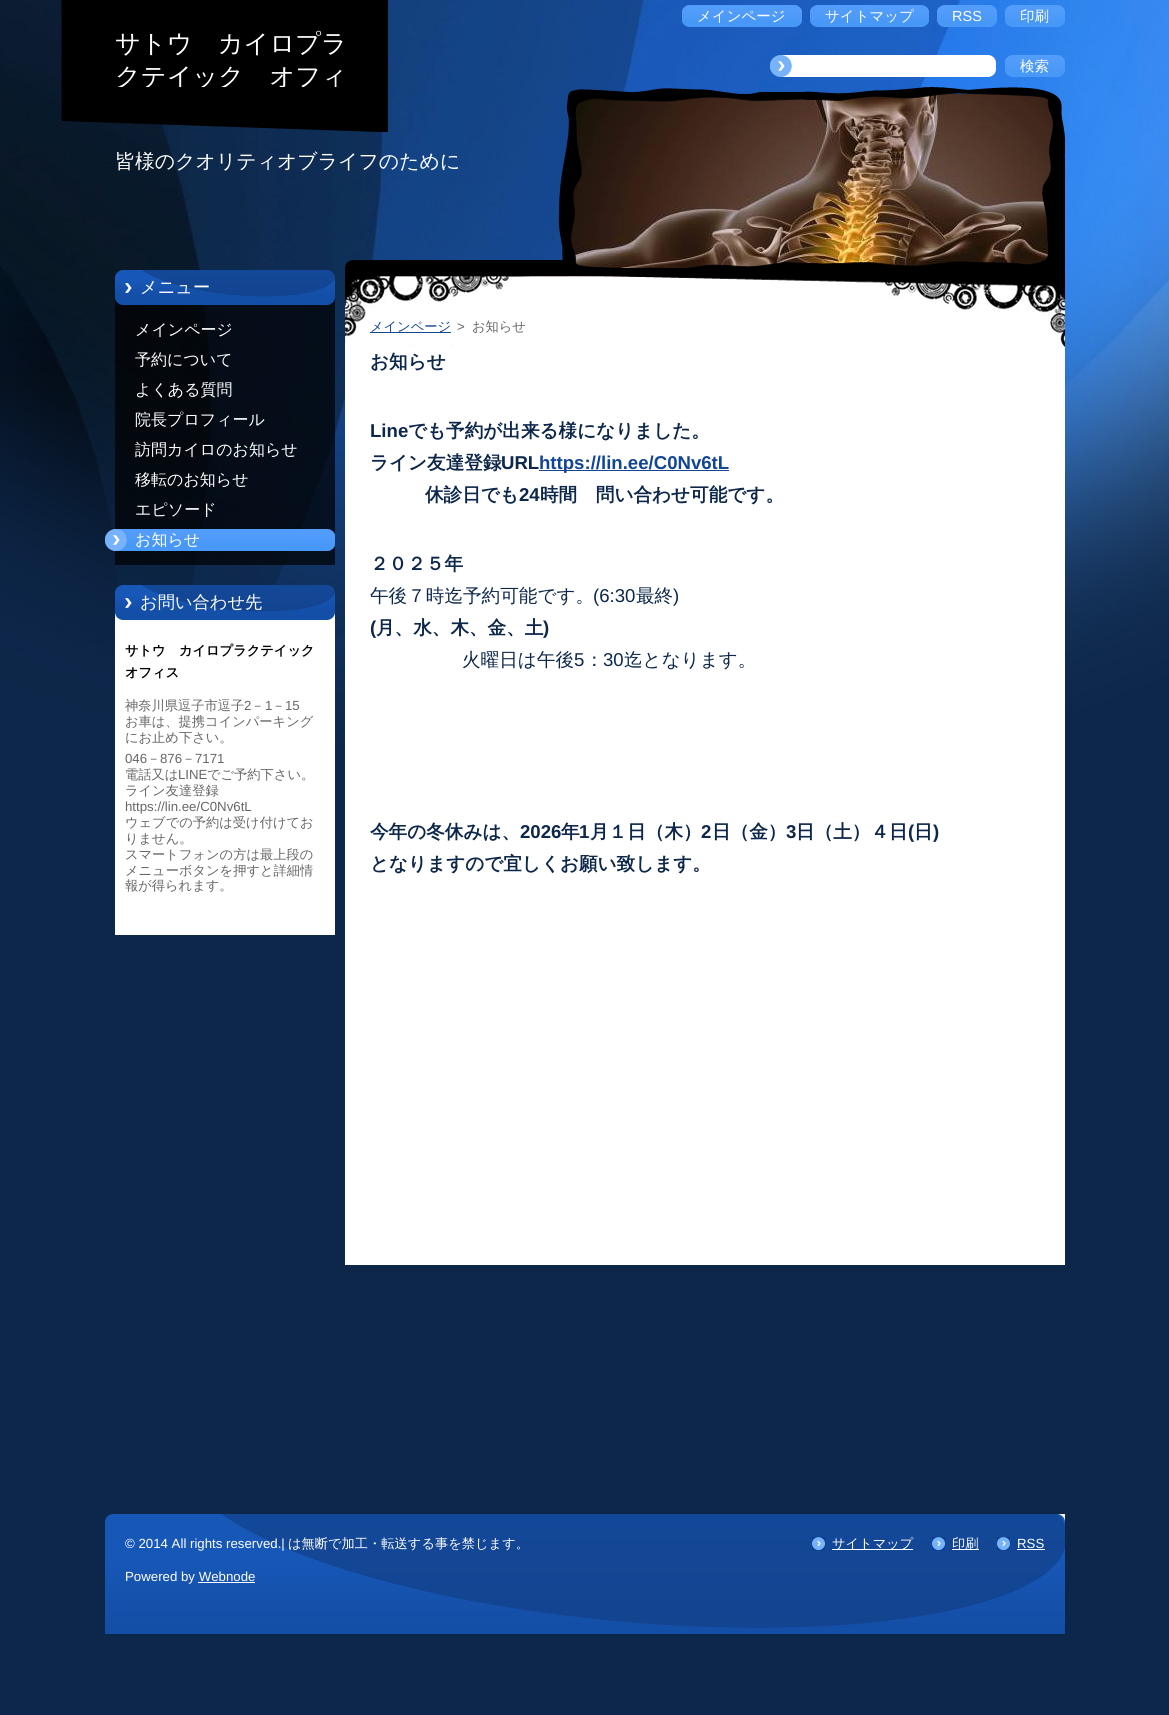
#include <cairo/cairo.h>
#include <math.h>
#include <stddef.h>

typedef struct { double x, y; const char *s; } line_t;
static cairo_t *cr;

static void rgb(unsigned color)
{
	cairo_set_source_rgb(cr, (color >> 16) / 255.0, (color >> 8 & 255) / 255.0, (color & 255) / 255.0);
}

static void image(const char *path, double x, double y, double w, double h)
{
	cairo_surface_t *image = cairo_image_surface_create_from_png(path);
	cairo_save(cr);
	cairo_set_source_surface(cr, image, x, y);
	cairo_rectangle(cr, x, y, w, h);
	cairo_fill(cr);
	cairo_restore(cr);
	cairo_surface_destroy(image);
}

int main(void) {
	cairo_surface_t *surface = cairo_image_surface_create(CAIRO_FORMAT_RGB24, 1169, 1715);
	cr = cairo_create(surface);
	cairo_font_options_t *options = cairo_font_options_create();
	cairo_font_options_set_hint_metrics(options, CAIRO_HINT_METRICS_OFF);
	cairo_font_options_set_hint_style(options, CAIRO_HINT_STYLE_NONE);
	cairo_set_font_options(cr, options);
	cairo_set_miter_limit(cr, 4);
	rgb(0x0d274a);
	cairo_paint(cr);
	image("img/1.png", 0, 0, 1169, 743);
	image("img/2.png", 62, 0, 326, 132);
	rgb(0xffffff);
	cairo_rectangle(cr, 345, 265, 720, 1000);
	cairo_fill(cr);
	image("img/3.png", 682, 5, 15, 22);
	image("img/4.png", 697, 5, 90, 22);
	image("img/5.png", 787, 5, 15, 22);
	image("img/6.png", 810, 5, 15, 22);
	image("img/7.png", 825, 5, 89, 22);
	image("img/9.png", 937, 5, 15, 22);
	image("img/10.png", 952, 5, 30, 22);
	image("img/11.png", 982, 5, 15, 22);
	image("img/12.png", 1005, 5, 15, 22);
	image("img/10.png", 1020, 5, 30, 22);
	image("img/13.png", 1050, 5, 15, 22);
	image("img/14.png", 770, 55, 226, 22);
	image("img/15.png", 1005, 55, 15, 22);
	image("img/10.png", 1020, 55, 30, 22);
	image("img/16.png", 1050, 55, 15, 22);
	image("img/17.png", 345, 260, 720, 10);
	image("img/19.png", 571, 94, 483, 174);
	image("img/18.png", 558, 87, 507, 181);
	image("img/20.png", 115, 270, 220, 35);
	cairo_set_source_rgba(cr, 0, 0, 0, 0.7);
	cairo_rectangle(cr, 115, 305, 220, 260);
	cairo_fill(cr);
	image("img/21.png", 105, 529, 230, 22);
	rgb(0xffffff);
	cairo_rectangle(cr, 115, 620, 220, 315);
	cairo_fill(cr);
	image("img/22.png", 115, 585, 220, 35);
	image("img/23.png", 345, 270, 720, 77);
	rgb(0x124593);
	cairo_rectangle(cr, 370, 332, 81, 1);
	cairo_fill(cr);
	cairo_rectangle(cr, 539, 470, 190, 1);
	cairo_fill(cr);
	image("img/24.png", 105, 1514, 960, 120);
	rgb(0xffffff);
	cairo_rectangle(cr, 198, 1582, 57, 1);
	cairo_fill(cr);
	image("img/25.png", 812, 1537, 13, 13);
	cairo_rectangle(cr, 832, 1549, 81, 1);
	cairo_fill(cr);
	image("img/25.png", 932, 1537, 13, 13);
	cairo_rectangle(cr, 952, 1549, 27, 1);
	cairo_fill(cr);
	image("img/25.png", 997, 1537, 13, 13);
	cairo_rectangle(cr, 1017, 1549, 28, 1);
	cairo_fill(cr);
	cairo_select_font_face(cr, "WenQuanYi Zen Hei Medium", CAIRO_FONT_SLANT_NORMAL, CAIRO_FONT_WEIGHT_NORMAL);
	cairo_set_font_size(cr, 14.5);
	cairo_move_to(cr, 697, 21);
	cairo_show_text(cr, "メインページ");
	cairo_move_to(cr, 825, 21);
	cairo_show_text(cr, "サイトマップ");
	image("img/8.png", 914, 5, 15, 22);
	cairo_select_font_face(cr, "Liberation Sans", CAIRO_FONT_SLANT_NORMAL, CAIRO_FONT_WEIGHT_NORMAL);
	cairo_move_to(cr, 952, 21);
	cairo_show_text(cr, "RSS");
	cairo_select_font_face(cr, "WenQuanYi Zen Hei Medium", CAIRO_FONT_SLANT_NORMAL, CAIRO_FONT_WEIGHT_NORMAL);
	cairo_move_to(cr, 1020, 21);
	cairo_show_text(cr, "印刷");
	cairo_set_font_size(cr, 25.25);
	cairo_move_to(cr, 115, 52);
	cairo_show_text(cr, "サトウ　カイロプラ");
	cairo_save(cr);
	cairo_rectangle(cr, 115, 27, 250, 60);
	cairo_clip(cr);
	cairo_move_to(cr, 115, 85);
	cairo_show_text(cr, "クテイック　オフィ");
	cairo_restore(cr);
	cairo_set_font_size(cr, 14.5);
	cairo_move_to(cr, 1020, 71);
	cairo_show_text(cr, "検索");
	cairo_set_font_size(cr, 19.9);
	cairo_move_to(cr, 115, 168);
	cairo_show_text(cr, "皆様のクオリティオブライフのために");
	cairo_set_font_size(cr, 17.25);
	cairo_move_to(cr, 140, 293);
	cairo_show_text(cr, "メニュー");
	cairo_set_font_size(cr, 16);
	{
		static const line_t items[] = {
			{135, 335, "メインページ"},
			{135, 365, "予約について"},
			{135, 395, "よくある質問"},
			{135, 425, "院長プロフィール"},
			{135, 455, "訪問カイロのお知らせ"},
			{135, 485, "移転のお知らせ"},
			{135, 515, "エピソード"},
			{135, 545, "お知らせ"},
		};
		for (size_t i = 0; i < sizeof items / sizeof *items; i++) {
			cairo_move_to(cr, items[i].x, items[i].y);
			cairo_show_text(cr, items[i].s);
		}
	}
	cairo_set_font_size(cr, 17.25);
	cairo_move_to(cr, 140, 608);
	cairo_show_text(cr, "お問い合わせ先");
	cairo_select_font_face(cr, "WenQuanYi Zen Hei", CAIRO_FONT_SLANT_NORMAL, CAIRO_FONT_WEIGHT_BOLD);
	cairo_set_font_size(cr, 13.25);
	rgb(0x000000);
	cairo_move_to(cr, 125, 655);
	cairo_show_text(cr, "サトウ　カイロプラクテイック");
	cairo_move_to(cr, 125, 677);
	cairo_show_text(cr, "オフィス");
	cairo_select_font_face(cr, "WenQuanYi Zen Hei Medium", CAIRO_FONT_SLANT_NORMAL, CAIRO_FONT_WEIGHT_NORMAL);
	rgb(0x666666);
	cairo_move_to(cr, 125, 710);
	cairo_show_text(cr, "神奈川県逗子市逗子");
	cairo_select_font_face(cr, "Liberation Sans", CAIRO_FONT_SLANT_NORMAL, CAIRO_FONT_WEIGHT_NORMAL);
	cairo_move_to(cr, 244, 710);
	cairo_show_text(cr, "2");
	cairo_select_font_face(cr, "WenQuanYi Zen Hei Medium", CAIRO_FONT_SLANT_NORMAL, CAIRO_FONT_WEIGHT_NORMAL);
	cairo_move_to(cr, 251, 710);
	cairo_show_text(cr, "－");
	cairo_select_font_face(cr, "Liberation Sans", CAIRO_FONT_SLANT_NORMAL, CAIRO_FONT_WEIGHT_NORMAL);
	cairo_move_to(cr, 265, 710);
	cairo_show_text(cr, "1");
	cairo_select_font_face(cr, "WenQuanYi Zen Hei Medium", CAIRO_FONT_SLANT_NORMAL, CAIRO_FONT_WEIGHT_NORMAL);
	cairo_move_to(cr, 272, 710);
	cairo_show_text(cr, "－");
	cairo_select_font_face(cr, "Liberation Sans", CAIRO_FONT_SLANT_NORMAL, CAIRO_FONT_WEIGHT_NORMAL);
	cairo_move_to(cr, 285, 710);
	cairo_show_text(cr, "15");
	cairo_select_font_face(cr, "WenQuanYi Zen Hei Medium", CAIRO_FONT_SLANT_NORMAL, CAIRO_FONT_WEIGHT_NORMAL);
	cairo_move_to(cr, 125, 726);
	cairo_show_text(cr, "お車は、提携コインパーキング");
	cairo_move_to(cr, 125, 742);
	cairo_show_text(cr, "にお止め下さい。");
	cairo_select_font_face(cr, "Liberation Sans", CAIRO_FONT_SLANT_NORMAL, CAIRO_FONT_WEIGHT_NORMAL);
	cairo_move_to(cr, 125, 763);
	cairo_show_text(cr, "046");
	cairo_select_font_face(cr, "WenQuanYi Zen Hei Medium", CAIRO_FONT_SLANT_NORMAL, CAIRO_FONT_WEIGHT_NORMAL);
	cairo_move_to(cr, 147, 763);
	cairo_show_text(cr, "－");
	cairo_select_font_face(cr, "Liberation Sans", CAIRO_FONT_SLANT_NORMAL, CAIRO_FONT_WEIGHT_NORMAL);
	cairo_move_to(cr, 160, 763);
	cairo_show_text(cr, "876");
	cairo_select_font_face(cr, "WenQuanYi Zen Hei Medium", CAIRO_FONT_SLANT_NORMAL, CAIRO_FONT_WEIGHT_NORMAL);
	cairo_move_to(cr, 182, 763);
	cairo_show_text(cr, "－");
	cairo_select_font_face(cr, "Liberation Sans", CAIRO_FONT_SLANT_NORMAL, CAIRO_FONT_WEIGHT_NORMAL);
	cairo_move_to(cr, 195, 763);
	cairo_show_text(cr, "7171");
	cairo_select_font_face(cr, "WenQuanYi Zen Hei Medium", CAIRO_FONT_SLANT_NORMAL, CAIRO_FONT_WEIGHT_NORMAL);
	cairo_move_to(cr, 125, 779);
	cairo_show_text(cr, "電話又は");
	cairo_select_font_face(cr, "Liberation Sans", CAIRO_FONT_SLANT_NORMAL, CAIRO_FONT_WEIGHT_NORMAL);
	cairo_move_to(cr, 178, 779);
	cairo_show_text(cr, "LINE");
	cairo_select_font_face(cr, "WenQuanYi Zen Hei Medium", CAIRO_FONT_SLANT_NORMAL, CAIRO_FONT_WEIGHT_NORMAL);
	cairo_move_to(cr, 207, 779);
	cairo_show_text(cr, "でご予約下さい。");
	cairo_move_to(cr, 125, 795);
	cairo_show_text(cr, "ライン友達登録");
	cairo_select_font_face(cr, "Liberation Sans", CAIRO_FONT_SLANT_NORMAL, CAIRO_FONT_WEIGHT_NORMAL);
	cairo_move_to(cr, 125, 811);
	cairo_show_text(cr, "https://lin.ee/C0Nv6tL");
	cairo_select_font_face(cr, "WenQuanYi Zen Hei Medium", CAIRO_FONT_SLANT_NORMAL, CAIRO_FONT_WEIGHT_NORMAL);
	{
		static const line_t items[] = {
			{125, 827, "ウェブでの予約は受け付けてお"},
			{125, 843, "りません。"},
			{125, 859, "スマートフォンの方は最上段の"},
			{125, 875, "メニューボタンを押すと詳細情"},
		};
		for (size_t i = 0; i < sizeof items / sizeof *items; i++) {
			cairo_move_to(cr, items[i].x, items[i].y);
			cairo_show_text(cr, items[i].s);
		}
	}
	cairo_save(cr);
	cairo_rectangle(cr, 125, 640, 200, 275);
	cairo_clip(cr);
	cairo_move_to(cr, 125, 890);
	cairo_show_text(cr, "報が得られます。");
	cairo_restore(cr);
	rgb(0x124593);
	cairo_move_to(cr, 370, 331);
	cairo_show_text(cr, "メインページ");
	cairo_select_font_face(cr, "Liberation Sans", CAIRO_FONT_SLANT_NORMAL, CAIRO_FONT_WEIGHT_NORMAL);
	rgb(0x666666);
	cairo_move_to(cr, 457, 331);
	cairo_show_text(cr, ">");
	cairo_select_font_face(cr, "WenQuanYi Zen Hei Medium", CAIRO_FONT_SLANT_NORMAL, CAIRO_FONT_WEIGHT_NORMAL);
	cairo_move_to(cr, 472, 331);
	cairo_show_text(cr, "お知らせ");
	cairo_select_font_face(cr, "WenQuanYi Zen Hei", CAIRO_FONT_SLANT_NORMAL, CAIRO_FONT_WEIGHT_BOLD);
	cairo_set_font_size(cr, 18.6);
	rgb(0x0d274a);
	cairo_move_to(cr, 370, 368);
	cairo_show_text(cr, "お知らせ");
	cairo_select_font_face(cr, "Liberation Sans", CAIRO_FONT_SLANT_NORMAL, CAIRO_FONT_WEIGHT_BOLD);
	cairo_move_to(cr, 370, 437);
	cairo_show_text(cr, "Line");
	cairo_select_font_face(cr, "WenQuanYi Zen Hei", CAIRO_FONT_SLANT_NORMAL, CAIRO_FONT_WEIGHT_BOLD);
	cairo_move_to(cr, 408, 437);
	cairo_show_text(cr, "でも予約が出来る様になりました。");
	cairo_move_to(cr, 370, 469);
	cairo_show_text(cr, "ライン友達登録");
	cairo_select_font_face(cr, "Liberation Sans", CAIRO_FONT_SLANT_NORMAL, CAIRO_FONT_WEIGHT_BOLD);
	cairo_move_to(cr, 501, 469);
	cairo_show_text(cr, "URL");
	rgb(0x124593);
	cairo_move_to(cr, 539, 469);
	cairo_show_text(cr, "https://lin.ee/C0Nv6tL");
	cairo_select_font_face(cr, "WenQuanYi Zen Hei", CAIRO_FONT_SLANT_NORMAL, CAIRO_FONT_WEIGHT_BOLD);
	rgb(0x0d274a);
	cairo_move_to(cr, 425, 501);
	cairo_show_text(cr, "休診日でも");
	cairo_select_font_face(cr, "Liberation Sans", CAIRO_FONT_SLANT_NORMAL, CAIRO_FONT_WEIGHT_BOLD);
	cairo_move_to(cr, 519, 501);
	cairo_show_text(cr, "24");
	cairo_select_font_face(cr, "WenQuanYi Zen Hei", CAIRO_FONT_SLANT_NORMAL, CAIRO_FONT_WEIGHT_BOLD);
	cairo_move_to(cr, 540, 501);
	cairo_show_text(cr, "時間　問い合わせ可能です。");
	cairo_move_to(cr, 370, 570);
	cairo_show_text(cr, "２０２５年");
	cairo_select_font_face(cr, "WenQuanYi Zen Hei Medium", CAIRO_FONT_SLANT_NORMAL, CAIRO_FONT_WEIGHT_NORMAL);
	cairo_move_to(cr, 370, 602);
	cairo_show_text(cr, "午後７時迄予約可能です。");
	cairo_select_font_face(cr, "Liberation Sans", CAIRO_FONT_SLANT_NORMAL, CAIRO_FONT_WEIGHT_NORMAL);
	cairo_move_to(cr, 593, 602);
	cairo_show_text(cr, "(6:30");
	cairo_select_font_face(cr, "WenQuanYi Zen Hei Medium", CAIRO_FONT_SLANT_NORMAL, CAIRO_FONT_WEIGHT_NORMAL);
	cairo_move_to(cr, 636, 602);
	cairo_show_text(cr, "最終");
	cairo_select_font_face(cr, "Liberation Sans", CAIRO_FONT_SLANT_NORMAL, CAIRO_FONT_WEIGHT_NORMAL);
	cairo_move_to(cr, 673, 602);
	cairo_show_text(cr, ")");
	cairo_select_font_face(cr, "Liberation Sans", CAIRO_FONT_SLANT_NORMAL, CAIRO_FONT_WEIGHT_BOLD);
	cairo_move_to(cr, 370, 634);
	cairo_show_text(cr, "(");
	cairo_select_font_face(cr, "WenQuanYi Zen Hei", CAIRO_FONT_SLANT_NORMAL, CAIRO_FONT_WEIGHT_BOLD);
	cairo_move_to(cr, 376, 634);
	cairo_show_text(cr, "月、水、木、金、土");
	cairo_select_font_face(cr, "Liberation Sans", CAIRO_FONT_SLANT_NORMAL, CAIRO_FONT_WEIGHT_BOLD);
	cairo_move_to(cr, 543, 634);
	cairo_show_text(cr, ")");
	cairo_select_font_face(cr, "WenQuanYi Zen Hei Medium", CAIRO_FONT_SLANT_NORMAL, CAIRO_FONT_WEIGHT_NORMAL);
	cairo_move_to(cr, 462, 666);
	cairo_show_text(cr, "火曜日は午後");
	cairo_select_font_face(cr, "Liberation Sans", CAIRO_FONT_SLANT_NORMAL, CAIRO_FONT_WEIGHT_NORMAL);
	cairo_move_to(cr, 574, 666);
	cairo_show_text(cr, "5");
	cairo_select_font_face(cr, "WenQuanYi Zen Hei Medium", CAIRO_FONT_SLANT_NORMAL, CAIRO_FONT_WEIGHT_NORMAL);
	cairo_move_to(cr, 585, 666);
	cairo_show_text(cr, "：");
	cairo_select_font_face(cr, "Liberation Sans", CAIRO_FONT_SLANT_NORMAL, CAIRO_FONT_WEIGHT_NORMAL);
	cairo_move_to(cr, 603, 666);
	cairo_show_text(cr, "30");
	cairo_select_font_face(cr, "WenQuanYi Zen Hei Medium", CAIRO_FONT_SLANT_NORMAL, CAIRO_FONT_WEIGHT_NORMAL);
	cairo_move_to(cr, 624, 666);
	cairo_show_text(cr, "迄となります。");
	cairo_select_font_face(cr, "WenQuanYi Zen Hei", CAIRO_FONT_SLANT_NORMAL, CAIRO_FONT_WEIGHT_BOLD);
	cairo_move_to(cr, 370, 838);
	cairo_show_text(cr, "今年の冬休みは、");
	cairo_select_font_face(cr, "Liberation Sans", CAIRO_FONT_SLANT_NORMAL, CAIRO_FONT_WEIGHT_BOLD);
	cairo_move_to(cr, 520, 838);
	cairo_show_text(cr, "2026");
	cairo_select_font_face(cr, "WenQuanYi Zen Hei", CAIRO_FONT_SLANT_NORMAL, CAIRO_FONT_WEIGHT_BOLD);
	cairo_move_to(cr, 561, 838);
	cairo_show_text(cr, "年");
	cairo_select_font_face(cr, "Liberation Sans", CAIRO_FONT_SLANT_NORMAL, CAIRO_FONT_WEIGHT_BOLD);
	cairo_move_to(cr, 579, 838);
	cairo_show_text(cr, "1");
	cairo_select_font_face(cr, "WenQuanYi Zen Hei", CAIRO_FONT_SLANT_NORMAL, CAIRO_FONT_WEIGHT_BOLD);
	cairo_move_to(cr, 590, 838);
	cairo_show_text(cr, "月１日（木）");
	cairo_select_font_face(cr, "Liberation Sans", CAIRO_FONT_SLANT_NORMAL, CAIRO_FONT_WEIGHT_BOLD);
	cairo_move_to(cr, 701, 838);
	cairo_show_text(cr, "2");
	cairo_select_font_face(cr, "WenQuanYi Zen Hei", CAIRO_FONT_SLANT_NORMAL, CAIRO_FONT_WEIGHT_BOLD);
	cairo_move_to(cr, 712, 838);
	cairo_show_text(cr, "日（金）");
	cairo_select_font_face(cr, "Liberation Sans", CAIRO_FONT_SLANT_NORMAL, CAIRO_FONT_WEIGHT_BOLD);
	cairo_move_to(cr, 786, 838);
	cairo_show_text(cr, "3");
	cairo_select_font_face(cr, "WenQuanYi Zen Hei", CAIRO_FONT_SLANT_NORMAL, CAIRO_FONT_WEIGHT_BOLD);
	cairo_move_to(cr, 796, 838);
	cairo_show_text(cr, "日（土）４日");
	cairo_select_font_face(cr, "Liberation Sans", CAIRO_FONT_SLANT_NORMAL, CAIRO_FONT_WEIGHT_BOLD);
	cairo_move_to(cr, 908, 838);
	cairo_show_text(cr, "(");
	cairo_select_font_face(cr, "WenQuanYi Zen Hei", CAIRO_FONT_SLANT_NORMAL, CAIRO_FONT_WEIGHT_BOLD);
	cairo_move_to(cr, 914, 838);
	cairo_show_text(cr, "日");
	cairo_select_font_face(cr, "Liberation Sans", CAIRO_FONT_SLANT_NORMAL, CAIRO_FONT_WEIGHT_BOLD);
	cairo_move_to(cr, 933, 838);
	cairo_show_text(cr, ")");
	cairo_select_font_face(cr, "WenQuanYi Zen Hei", CAIRO_FONT_SLANT_NORMAL, CAIRO_FONT_WEIGHT_BOLD);
	cairo_move_to(cr, 370, 870);
	cairo_show_text(cr, "となりますので宜しくお願い致します。");
	cairo_save(cr);
	cairo_rectangle(cr, 125, 1534, 580, 20);
	cairo_clip(cr);
	cairo_select_font_face(cr, "Liberation Sans", CAIRO_FONT_SLANT_NORMAL, CAIRO_FONT_WEIGHT_NORMAL);
	cairo_set_font_size(cr, 13.25);
	rgb(0xffffff);
	cairo_move_to(cr, 125, 1548);
	cairo_show_text(cr, "© 2014 All rights reserved.|");
	cairo_restore(cr);
	cairo_select_font_face(cr, "WenQuanYi Zen Hei Medium", CAIRO_FONT_SLANT_NORMAL, CAIRO_FONT_WEIGHT_NORMAL);
	cairo_set_font_size(cr, 13.25);
	rgb(0xffffff);
	cairo_move_to(cr, 288, 1548);
	cairo_show_text(cr, "は無断で加工・転送する事を禁じます。");
	cairo_select_font_face(cr, "Liberation Sans", CAIRO_FONT_SLANT_NORMAL, CAIRO_FONT_WEIGHT_NORMAL);
	cairo_move_to(cr, 125, 1581);
	cairo_show_text(cr, "Powered by Webnode");
	cairo_select_font_face(cr, "WenQuanYi Zen Hei Medium", CAIRO_FONT_SLANT_NORMAL, CAIRO_FONT_WEIGHT_NORMAL);
	cairo_move_to(cr, 832, 1548);
	cairo_show_text(cr, "サイトマップ");
	cairo_move_to(cr, 952, 1548);
	cairo_show_text(cr, "印刷");
	cairo_select_font_face(cr, "Liberation Sans", CAIRO_FONT_SLANT_NORMAL, CAIRO_FONT_WEIGHT_NORMAL);
	cairo_move_to(cr, 1017, 1548);
	cairo_show_text(cr, "RSS");
	cairo_surface_write_to_png(surface, "page.png");
	cairo_font_options_destroy(options);
	cairo_destroy(cr);
	cairo_surface_destroy(surface);
	return 0;
}
